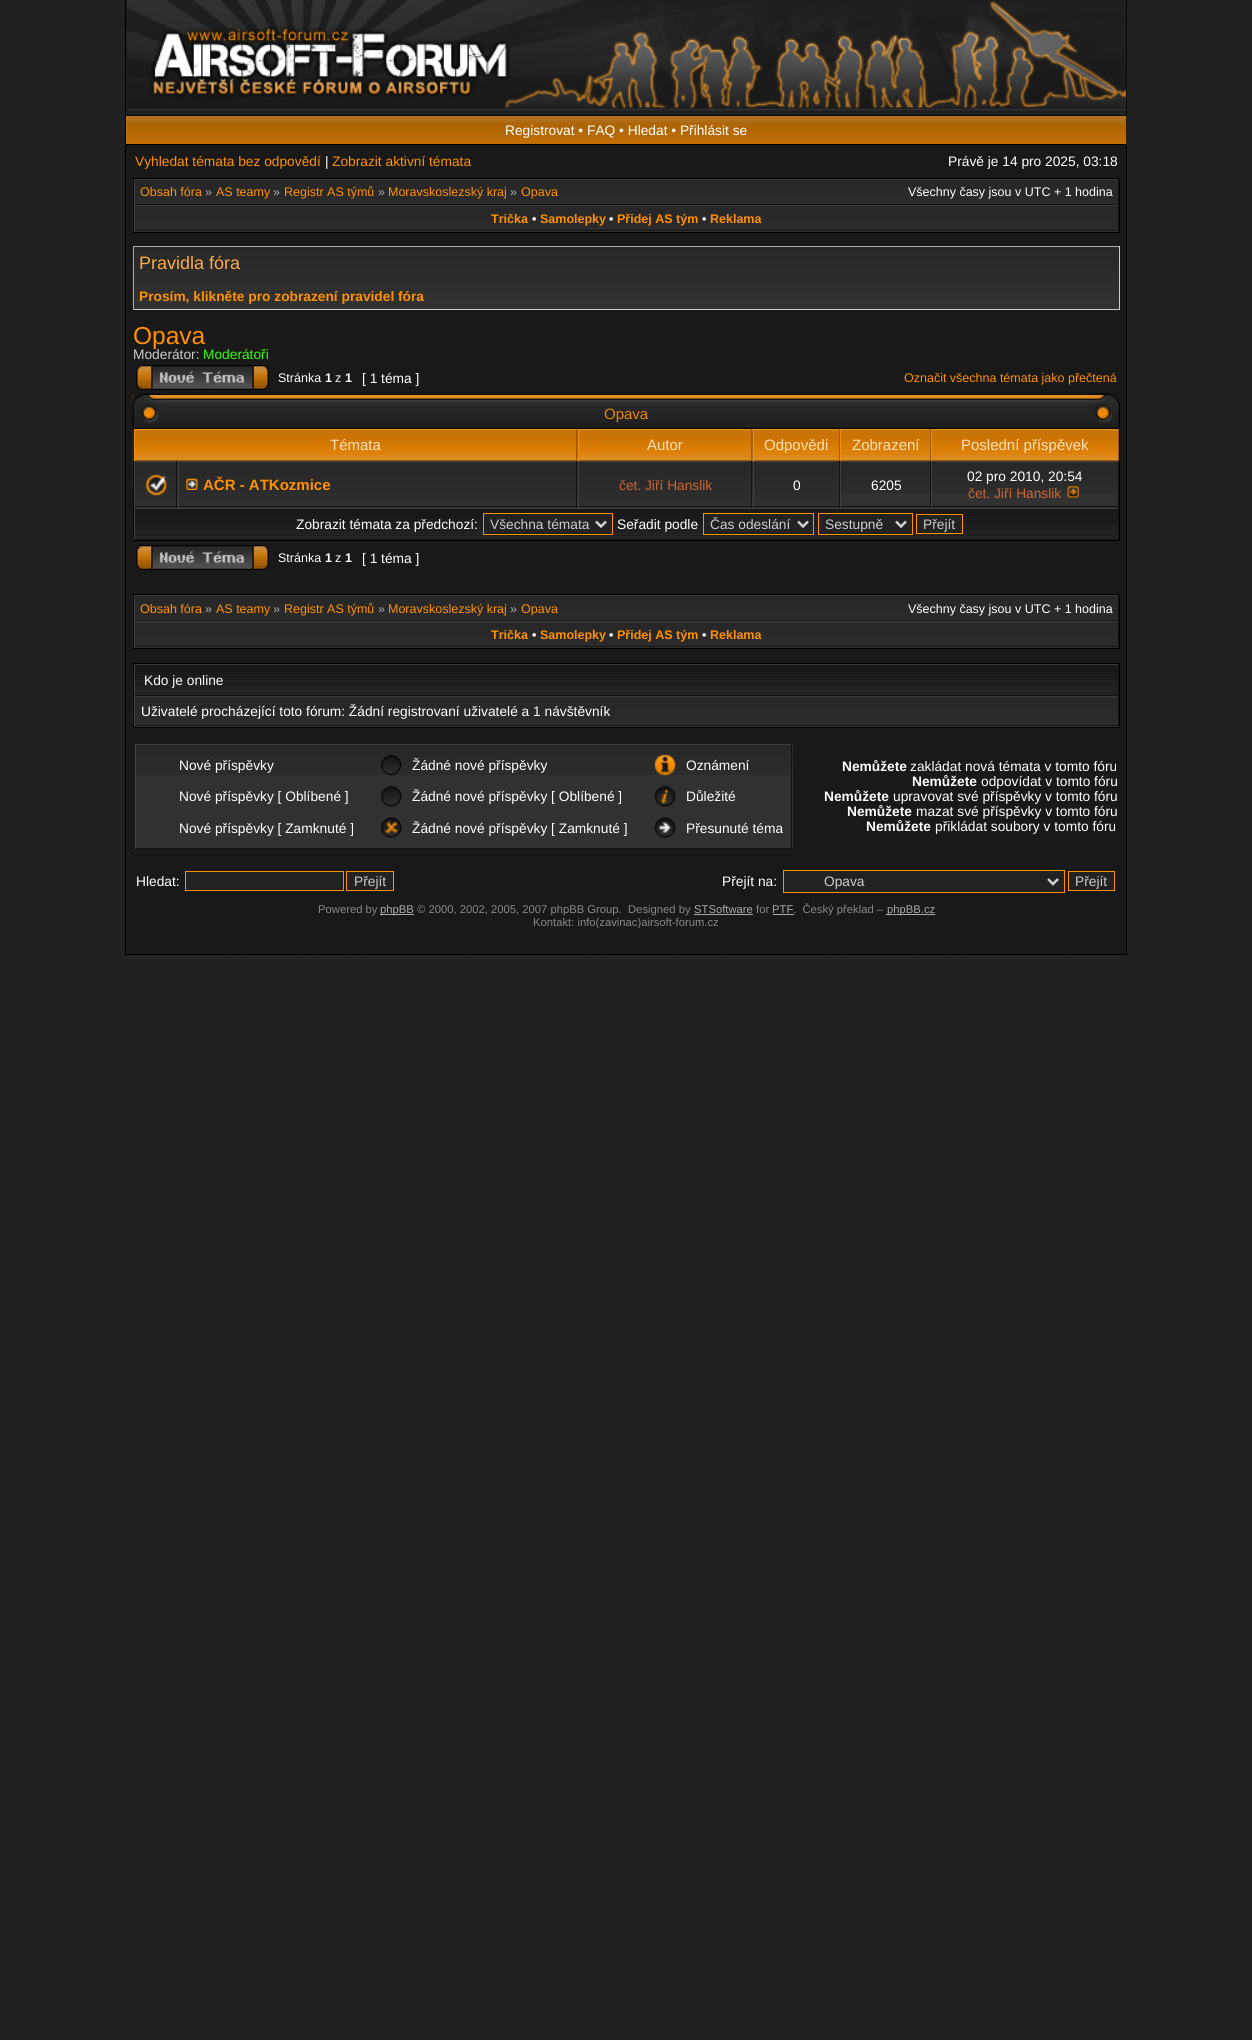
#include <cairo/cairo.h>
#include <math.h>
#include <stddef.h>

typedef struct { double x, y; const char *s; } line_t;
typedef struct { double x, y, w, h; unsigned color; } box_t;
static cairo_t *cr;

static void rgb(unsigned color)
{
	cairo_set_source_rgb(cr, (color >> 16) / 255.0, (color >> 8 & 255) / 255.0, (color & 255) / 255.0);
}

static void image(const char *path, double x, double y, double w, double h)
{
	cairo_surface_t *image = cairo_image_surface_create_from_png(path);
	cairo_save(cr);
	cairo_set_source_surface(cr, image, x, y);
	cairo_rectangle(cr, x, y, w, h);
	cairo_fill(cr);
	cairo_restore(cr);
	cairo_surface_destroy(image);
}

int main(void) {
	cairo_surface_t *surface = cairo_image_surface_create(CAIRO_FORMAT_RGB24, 1252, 2040);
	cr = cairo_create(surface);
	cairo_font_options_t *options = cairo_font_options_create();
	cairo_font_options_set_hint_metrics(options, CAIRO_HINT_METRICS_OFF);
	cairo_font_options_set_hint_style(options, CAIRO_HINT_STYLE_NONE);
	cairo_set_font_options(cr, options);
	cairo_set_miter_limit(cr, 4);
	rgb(0xffffff);
	cairo_paint(cr);
	image("img/1.png", 0, 0, 1252, 2040);
	{
		static const box_t items[] = {
			{1126, 0, 1, 955, 0x000000},
			{125, 954, 1003, 1, 0x000000},
			{125, 0, 1, 955, 0x000000},
		};
		for (size_t i = 0; i < sizeof items / sizeof *items; i++) {
			rgb(items[i].color);
			cairo_rectangle(cr, items[i].x, items[i].y, items[i].w, items[i].h);
			cairo_fill(cr);
		}
	}
	image("img/2.png", 126, 0, 1001, 110);
	image("img/3.png", 126, 0, 1001, 109);
	rgb(0xd38724);
	cairo_rectangle(cr, 126, 116, 1000, 28);
	cairo_fill(cr);
	image("img/4.png", 126, 116, 1001, 29);
	{
		static const box_t items[] = {
			{126, 115, 1000, 1, 0x000000},
			{126, 144, 1000, 1, 0x000000},
			{126, 145, 1000, 809, 0x191919},
		};
		for (size_t i = 0; i < sizeof items / sizeof *items; i++) {
			rgb(items[i].color);
			cairo_rectangle(cr, items[i].x, items[i].y, items[i].w, items[i].h);
			cairo_fill(cr);
		}
	}
	image("img/5.png", 132, 179, 987, 54);
	cairo_rectangle(cr, 133.5, 178.5, 986, 54);
	rgb(0x000000);
	cairo_set_line_width(cr, 1);
	cairo_stroke(cr);
	image("img/6.png", 133, 180, 985, 25);
	{
		static const box_t items[] = {
			{134, 179, 985, 1, 0x3c3c3c},
			{1118, 179, 1, 26, 0x121212},
			{134, 204, 985, 1, 0x131313},
			{134, 179, 1, 26, 0x404040},
		};
		for (size_t i = 0; i < sizeof items / sizeof *items; i++) {
			rgb(items[i].color);
			cairo_rectangle(cr, items[i].x, items[i].y, items[i].w, items[i].h);
			cairo_fill(cr);
		}
	}
	image("img/7.png", 133, 206, 985, 25);
	{
		static const box_t items[] = {
			{134, 205, 985, 1, 0x3c3c3c},
			{1118, 205, 1, 26, 0x121212},
			{134, 230, 985, 1, 0x131313},
			{134, 205, 1, 26, 0x404040},
			{134, 247, 985, 62, 0x313131},
		};
		for (size_t i = 0; i < sizeof items / sizeof *items; i++) {
			rgb(items[i].color);
			cairo_rectangle(cr, items[i].x, items[i].y, items[i].w, items[i].h);
			cairo_fill(cr);
		}
	}
	image("img/8.png", 132, 247, 987, 59);
	{
		static const box_t items[] = {
			{133, 246, 987, 1, 0xaaaaaa},
			{1119, 246, 1, 64, 0xcccccc},
			{133, 309, 987, 1, 0xcccccc},
			{133, 246, 1, 64, 0xaaaaaa},
		};
		for (size_t i = 0; i < sizeof items / sizeof *items; i++) {
			rgb(items[i].color);
			cairo_rectangle(cr, items[i].x, items[i].y, items[i].w, items[i].h);
			cairo_fill(cr);
		}
	}
	image("img/9.png", 136, 365, 133, 25);
	image("img/10.png", 132, 393, 988, 34);
	image("img/11.png", 132, 393, 32, 35);
	image("img/12.png", 1089, 393, 31, 35);
	image("img/13.png", 132, 429, 621, 59);
	cairo_rectangle(cr, 133.5, 428.5, 986, 112);
	rgb(0x000000);
	cairo_stroke(cr);
	image("img/14.png", 133, 430, 445, 32);
	{
		static const box_t items[] = {
			{134, 429, 985, 1, 0xf58d07},
			{576, 429, 1, 32, 0x9f5a00},
			{134, 460, 444, 1, 0x9f5a00},
			{134, 429, 1, 32, 0xf58d07},
		};
		for (size_t i = 0; i < sizeof items / sizeof *items; i++) {
			rgb(items[i].color);
			cairo_rectangle(cr, items[i].x, items[i].y, items[i].w, items[i].h);
			cairo_fill(cr);
		}
	}
	image("img/15.png", 577, 430, 176, 31);
	{
		static const box_t items[] = {
			{751, 429, 1, 32, 0x9f5a00},
			{578, 460, 175, 1, 0x9f5a00},
			{578, 429, 1, 32, 0xf58d07},
		};
		for (size_t i = 0; i < sizeof items / sizeof *items; i++) {
			rgb(items[i].color);
			cairo_rectangle(cr, items[i].x, items[i].y, items[i].w, items[i].h);
			cairo_fill(cr);
		}
	}
	image("img/16.png", 752, 430, 87, 31);
	{
		static const box_t items[] = {
			{839, 429, 1, 32, 0x9f5a00},
			{753, 460, 87, 1, 0x9f5a00},
			{753, 429, 1, 32, 0xf58d07},
		};
		for (size_t i = 0; i < sizeof items / sizeof *items; i++) {
			rgb(items[i].color);
			cairo_rectangle(cr, items[i].x, items[i].y, items[i].w, items[i].h);
			cairo_fill(cr);
		}
	}
	image("img/17.png", 841, 430, 89, 30);
	{
		static const box_t items[] = {
			{930, 429, 1, 32, 0x9f5a00},
			{840, 460, 91, 1, 0x9f5a00},
			{840, 429, 1, 32, 0xf58d07},
		};
		for (size_t i = 0; i < sizeof items / sizeof *items; i++) {
			rgb(items[i].color);
			cairo_rectangle(cr, items[i].x, items[i].y, items[i].w, items[i].h);
			cairo_fill(cr);
		}
	}
	image("img/18.png", 932, 430, 186, 30);
	{
		static const box_t items[] = {
			{1118, 429, 1, 32, 0x9f5a00},
			{931, 460, 188, 1, 0x9f5a00},
			{931, 429, 1, 32, 0xf58d07},
			{135, 462, 43, 46, 0x313131},
		};
		for (size_t i = 0; i < sizeof items / sizeof *items; i++) {
			rgb(items[i].color);
			cairo_rectangle(cr, items[i].x, items[i].y, items[i].w, items[i].h);
			cairo_fill(cr);
		}
	}
	image("img/19.png", 133, 462, 45, 46);
	{
		static const box_t items[] = {
			{134, 461, 985, 1, 0x3c3c3c},
			{176, 461, 1, 47, 0x121212},
			{134, 506, 44, 1, 0x131313},
			{134, 461, 1, 47, 0x404040},
		};
		for (size_t i = 0; i < sizeof items / sizeof *items; i++) {
			rgb(items[i].color);
			cairo_rectangle(cr, items[i].x, items[i].y, items[i].w, items[i].h);
			cairo_fill(cr);
		}
	}
	image("img/20.png", 146, 474, 21, 22);
	rgb(0x313131);
	cairo_rectangle(cr, 179, 462, 399, 46);
	cairo_fill(cr);
	image("img/21.png", 177, 462, 401, 45);
	{
		static const box_t items[] = {
			{576, 461, 1, 47, 0x121212},
			{178, 506, 400, 1, 0x131313},
			{178, 461, 1, 47, 0x404040},
		};
		for (size_t i = 0; i < sizeof items / sizeof *items; i++) {
			rgb(items[i].color);
			cairo_rectangle(cr, items[i].x, items[i].y, items[i].w, items[i].h);
			cairo_fill(cr);
		}
	}
	image("img/22.png", 186, 478, 12, 12);
	rgb(0x313131);
	cairo_rectangle(cr, 579, 462, 174, 46);
	cairo_fill(cr);
	image("img/23.png", 577, 462, 176, 45);
	{
		static const box_t items[] = {
			{751, 461, 1, 47, 0x121212},
			{578, 506, 175, 1, 0x131313},
			{578, 461, 1, 47, 0x404040},
			{754, 462, 85, 46, 0x313131},
		};
		for (size_t i = 0; i < sizeof items / sizeof *items; i++) {
			rgb(items[i].color);
			cairo_rectangle(cr, items[i].x, items[i].y, items[i].w, items[i].h);
			cairo_fill(cr);
		}
	}
	image("img/24.png", 752, 462, 87, 45);
	{
		static const box_t items[] = {
			{839, 461, 1, 47, 0x121212},
			{753, 506, 87, 1, 0x131313},
			{753, 461, 1, 47, 0x404040},
			{841, 462, 89, 46, 0x313131},
		};
		for (size_t i = 0; i < sizeof items / sizeof *items; i++) {
			rgb(items[i].color);
			cairo_rectangle(cr, items[i].x, items[i].y, items[i].w, items[i].h);
			cairo_fill(cr);
		}
	}
	image("img/25.png", 841, 462, 89, 31);
	{
		static const box_t items[] = {
			{930, 461, 1, 47, 0x121212},
			{840, 506, 91, 1, 0x131313},
			{840, 461, 1, 47, 0x404040},
			{932, 462, 186, 46, 0x313131},
		};
		for (size_t i = 0; i < sizeof items / sizeof *items; i++) {
			rgb(items[i].color);
			cairo_rectangle(cr, items[i].x, items[i].y, items[i].w, items[i].h);
			cairo_fill(cr);
		}
	}
	image("img/26.png", 932, 462, 186, 31);
	{
		static const box_t items[] = {
			{1118, 461, 1, 47, 0x121212},
			{931, 506, 188, 1, 0x131313},
			{931, 461, 1, 47, 0x404040},
		};
		for (size_t i = 0; i < sizeof items / sizeof *items; i++) {
			rgb(items[i].color);
			cairo_rectangle(cr, items[i].x, items[i].y, items[i].w, items[i].h);
			cairo_fill(cr);
		}
	}
	image("img/27.png", 1067, 486, 12, 12);
	image("img/28.png", 133, 508, 985, 32);
	{
		static const box_t items[] = {
			{134, 508, 985, 1, 0x3c3c3c},
			{1118, 508, 1, 32, 0x121212},
			{134, 539, 985, 1, 0x131313},
			{134, 508, 1, 32, 0x404040},
			{484, 514, 128, 17, 0x222222},
		};
		for (size_t i = 0; i < sizeof items / sizeof *items; i++) {
			rgb(items[i].color);
			cairo_rectangle(cr, items[i].x, items[i].y, items[i].w, items[i].h);
			cairo_fill(cr);
		}
	}
	cairo_rectangle(cr, 483.5, 513.5, 129, 21);
	rgb(0xff9000);
	cairo_stroke(cr);
	cairo_new_path(cr);
	cairo_move_to(cr, 596, 521.5);
	cairo_line_to(cr, 601, 526.5);
	cairo_line_to(cr, 606, 521.5);
	rgb(0xd0d0d0);
	cairo_set_line_width(cr, 2.5);
	cairo_stroke(cr);
	rgb(0x222222);
	cairo_rectangle(cr, 704, 514, 109, 17);
	cairo_fill(cr);
	cairo_rectangle(cr, 703.5, 513.5, 110, 21);
	rgb(0xff9000);
	cairo_set_line_width(cr, 1);
	cairo_stroke(cr);
	cairo_new_path(cr);
	cairo_move_to(cr, 798, 521.5);
	cairo_line_to(cr, 803, 526.5);
	cairo_line_to(cr, 808, 521.5);
	rgb(0xd0d0d0);
	cairo_set_line_width(cr, 2.5);
	cairo_stroke(cr);
	rgb(0x222222);
	cairo_rectangle(cr, 819, 514, 93, 17);
	cairo_fill(cr);
	cairo_rectangle(cr, 818.5, 513.5, 94, 21);
	rgb(0xff9000);
	cairo_set_line_width(cr, 1);
	cairo_stroke(cr);
	cairo_new_path(cr);
	cairo_move_to(cr, 896, 521.5);
	cairo_line_to(cr, 901, 526.5);
	cairo_line_to(cr, 906, 521.5);
	rgb(0xd0d0d0);
	cairo_set_line_width(cr, 2.5);
	cairo_stroke(cr);
	rgb(0x222222);
	cairo_rectangle(cr, 917, 515, 45, 16);
	cairo_fill(cr);
	cairo_rectangle(cr, 916.5, 514.5, 46, 19);
	rgb(0xff9000);
	cairo_set_line_width(cr, 1);
	cairo_stroke(cr);
	image("img/9.png", 136, 545, 133, 25);
	image("img/29.png", 132, 595, 986, 54);
	cairo_rectangle(cr, 133.5, 594.5, 986, 54);
	rgb(0x000000);
	cairo_stroke(cr);
	image("img/7.png", 133, 596, 985, 25);
	{
		static const box_t items[] = {
			{134, 595, 985, 1, 0x3c3c3c},
			{1118, 595, 1, 26, 0x121212},
			{134, 620, 985, 1, 0x131313},
			{134, 595, 1, 26, 0x404040},
			{135, 622, 983, 12, 0x313131},
		};
		for (size_t i = 0; i < sizeof items / sizeof *items; i++) {
			rgb(items[i].color);
			cairo_rectangle(cr, items[i].x, items[i].y, items[i].w, items[i].h);
			cairo_fill(cr);
		}
	}
	image("img/30.png", 133, 622, 985, 26);
	{
		static const box_t items[] = {
			{134, 621, 985, 1, 0x3c3c3c},
			{1118, 621, 1, 27, 0x121212},
			{134, 646, 985, 1, 0x131313},
			{134, 621, 1, 27, 0x404040},
			{134, 726, 985, 1, 0x313131},
		};
		for (size_t i = 0; i < sizeof items / sizeof *items; i++) {
			rgb(items[i].color);
			cairo_rectangle(cr, items[i].x, items[i].y, items[i].w, items[i].h);
			cairo_fill(cr);
		}
	}
	image("img/31.png", 132, 664, 1, 59);
	cairo_rectangle(cr, 133.5, 663.5, 986, 64);
	rgb(0x000000);
	cairo_stroke(cr);
	image("img/32.png", 133, 665, 985, 31);
	{
		static const box_t items[] = {
			{134, 664, 985, 1, 0x3c3c3c},
			{1118, 664, 1, 32, 0x121212},
			{134, 695, 985, 1, 0x131313},
			{134, 664, 1, 32, 0x404040},
			{135, 697, 983, 1, 0x313131},
		};
		for (size_t i = 0; i < sizeof items / sizeof *items; i++) {
			rgb(items[i].color);
			cairo_rectangle(cr, items[i].x, items[i].y, items[i].w, items[i].h);
			cairo_fill(cr);
		}
	}
	image("img/33.png", 133, 697, 985, 29);
	{
		static const box_t items[] = {
			{134, 696, 985, 1, 0x3c3c3c},
			{1118, 696, 1, 30, 0x121212},
			{134, 725, 985, 1, 0x131313},
			{134, 696, 1, 30, 0x404040},
			{136, 745, 657, 103, 0x313131},
		};
		for (size_t i = 0; i < sizeof items / sizeof *items; i++) {
			rgb(items[i].color);
			cairo_rectangle(cr, items[i].x, items[i].y, items[i].w, items[i].h);
			cairo_fill(cr);
		}
	}
	image("img/34.png", 136, 745, 657, 30);
	{
		static const box_t items[] = {
			{135, 744, 658, 1, 0x3c3c3c},
			{791, 744, 1, 105, 0x121212},
			{135, 848, 658, 1, 0x131313},
			{135, 744, 1, 105, 0x404040},
		};
		for (size_t i = 0; i < sizeof items / sizeof *items; i++) {
			rgb(items[i].color);
			cairo_rectangle(cr, items[i].x, items[i].y, items[i].w, items[i].h);
			cairo_fill(cr);
		}
	}
	image("img/35.png", 381, 755, 21, 21);
	image("img/36.png", 654, 754, 22, 22);
	image("img/37.png", 381, 786, 21, 21);
	image("img/38.png", 655, 786, 21, 21);
	image("img/39.png", 381, 817, 21, 21);
	image("img/40.png", 655, 817, 21, 21);
	rgb(0x222222);
	cairo_rectangle(cr, 185.5, 871.5, 158, 19);
	cairo_fill_preserve(cr);
	rgb(0xff9000);
	cairo_stroke(cr);
	rgb(0x222222);
	cairo_rectangle(cr, 346.5, 871.5, 47, 19);
	cairo_fill_preserve(cr);
	rgb(0xff9000);
	cairo_stroke(cr);
	rgb(0x222222);
	cairo_rectangle(cr, 783.5, 870.5, 281, 22);
	cairo_fill_preserve(cr);
	rgb(0xff9000);
	cairo_stroke(cr);
	cairo_new_path(cr);
	cairo_move_to(cr, 1048, 879);
	cairo_line_to(cr, 1053, 884);
	cairo_line_to(cr, 1058, 879);
	rgb(0xd0d0d0);
	cairo_set_line_width(cr, 2.5);
	cairo_stroke(cr);
	rgb(0x222222);
	cairo_rectangle(cr, 1068.5, 871.5, 46, 19);
	cairo_fill_preserve(cr);
	rgb(0xff9000);
	cairo_set_line_width(cr, 1);
	cairo_stroke(cr);
	{
		static const box_t items[] = {
			{380, 914, 34, 1, 0xaaaaaa},
			{694, 914, 59, 1, 0xaaaaaa},
			{773, 914, 21, 1, 0xaaaaaa},
			{886, 914, 49, 1, 0xaaaaaa},
		};
		for (size_t i = 0; i < sizeof items / sizeof *items; i++) {
			rgb(items[i].color);
			cairo_rectangle(cr, items[i].x, items[i].y, items[i].w, items[i].h);
			cairo_fill(cr);
		}
	}
	cairo_select_font_face(cr, "Liberation Sans", CAIRO_FONT_SLANT_NORMAL, CAIRO_FONT_WEIGHT_NORMAL);
	cairo_set_font_size(cr, 13.75);
	rgb(0xffffff);
	cairo_move_to(cr, 505, 135);
	cairo_show_text(cr, "Registrovat • FAQ • Hledat • Přihlásit se");
	rgb(0xff9000);
	cairo_move_to(cr, 135, 166);
	cairo_show_text(cr, "Vyhledat témata bez odpovědí");
	rgb(0xffffff);
	cairo_move_to(cr, 325, 166);
	cairo_show_text(cr, "|");
	rgb(0xff9000);
	cairo_move_to(cr, 332, 166);
	cairo_show_text(cr, "Zobrazit aktivní témata");
	rgb(0xffffff);
	cairo_move_to(cr, 948, 166);
	cairo_show_text(cr, "Právě je 14 pro 2025, 03:18");
	cairo_set_font_size(cr, 12.5);
	rgb(0xff9000);
	cairo_move_to(cr, 140, 196);
	cairo_show_text(cr, "Obsah fóra");
	rgb(0xaaaaaa);
	cairo_move_to(cr, 205, 196);
	cairo_show_text(cr, "»");
	rgb(0xff9000);
	cairo_move_to(cr, 216, 196);
	cairo_show_text(cr, "AS teamy");
	rgb(0xaaaaaa);
	cairo_move_to(cr, 273, 196);
	cairo_show_text(cr, "»");
	rgb(0xff9000);
	cairo_move_to(cr, 284, 196);
	cairo_show_text(cr, "Registr AS týmů");
	rgb(0xaaaaaa);
	cairo_move_to(cr, 378, 196);
	cairo_show_text(cr, "»");
	rgb(0xff9000);
	cairo_move_to(cr, 388, 196);
	cairo_show_text(cr, "Moravskoslezský kraj");
	rgb(0xaaaaaa);
	cairo_move_to(cr, 510, 196);
	cairo_show_text(cr, "»");
	rgb(0xff9000);
	cairo_move_to(cr, 521, 196);
	cairo_show_text(cr, "Opava");
	rgb(0xffffff);
	cairo_move_to(cr, 908, 196);
	cairo_show_text(cr, "Všechny časy jsou v UTC + 1 hodina");
	cairo_select_font_face(cr, "Liberation Sans", CAIRO_FONT_SLANT_NORMAL, CAIRO_FONT_WEIGHT_BOLD);
	rgb(0xff9000);
	cairo_move_to(cr, 491, 223);
	cairo_show_text(cr, "Trička");
	rgb(0xffffff);
	cairo_move_to(cr, 532, 223);
	cairo_show_text(cr, "•");
	rgb(0xff9000);
	cairo_move_to(cr, 540, 223);
	cairo_show_text(cr, "Samolepky");
	rgb(0xffffff);
	cairo_move_to(cr, 609, 223);
	cairo_show_text(cr, "•");
	rgb(0xff9000);
	cairo_move_to(cr, 617, 223);
	cairo_show_text(cr, "Přidej AS tým");
	rgb(0xffffff);
	cairo_move_to(cr, 702, 223);
	cairo_show_text(cr, "•");
	rgb(0xff9000);
	cairo_move_to(cr, 710, 223);
	cairo_show_text(cr, "Reklama");
	cairo_select_font_face(cr, "Liberation Sans", CAIRO_FONT_SLANT_NORMAL, CAIRO_FONT_WEIGHT_NORMAL);
	cairo_set_font_size(cr, 18);
	rgb(0xfdac43);
	cairo_move_to(cr, 139, 269);
	cairo_show_text(cr, "Pravidla fóra");
	cairo_select_font_face(cr, "Liberation Sans", CAIRO_FONT_SLANT_NORMAL, CAIRO_FONT_WEIGHT_BOLD);
	cairo_set_font_size(cr, 13.75);
	rgb(0xff9000);
	cairo_move_to(cr, 139, 301);
	cairo_show_text(cr, "Prosím, klikněte pro zobrazení pravidel fóra");
	cairo_select_font_face(cr, "Liberation Sans", CAIRO_FONT_SLANT_NORMAL, CAIRO_FONT_WEIGHT_NORMAL);
	cairo_set_font_size(cr, 24.5);
	cairo_move_to(cr, 133, 344);
	cairo_show_text(cr, "Opava");
	cairo_set_font_size(cr, 13.75);
	rgb(0xcccccc);
	cairo_move_to(cr, 133, 359);
	cairo_show_text(cr, "Moderátor:");
	rgb(0x33ff00);
	cairo_move_to(cr, 203, 359);
	cairo_show_text(cr, "Moderátoři");
	cairo_set_font_size(cr, 12.5);
	rgb(0xffffff);
	cairo_move_to(cr, 278, 382);
	cairo_show_text(cr, "Stránka");
	cairo_select_font_face(cr, "Liberation Sans", CAIRO_FONT_SLANT_NORMAL, CAIRO_FONT_WEIGHT_BOLD);
	cairo_move_to(cr, 325, 382);
	cairo_show_text(cr, "1");
	cairo_select_font_face(cr, "Liberation Sans", CAIRO_FONT_SLANT_NORMAL, CAIRO_FONT_WEIGHT_NORMAL);
	cairo_move_to(cr, 335, 382);
	cairo_show_text(cr, "z");
	cairo_select_font_face(cr, "Liberation Sans", CAIRO_FONT_SLANT_NORMAL, CAIRO_FONT_WEIGHT_BOLD);
	cairo_move_to(cr, 345, 382);
	cairo_show_text(cr, "1");
	cairo_select_font_face(cr, "Liberation Sans", CAIRO_FONT_SLANT_NORMAL, CAIRO_FONT_WEIGHT_NORMAL);
	cairo_set_font_size(cr, 13.75);
	cairo_move_to(cr, 362, 383);
	cairo_show_text(cr, "[ 1 téma ]");
	cairo_set_font_size(cr, 12.5);
	rgb(0xff9000);
	cairo_move_to(cr, 904, 382);
	cairo_show_text(cr, "Označit všechna témata jako přečtená");
	cairo_set_font_size(cr, 15);
	rgb(0xeb8500);
	cairo_move_to(cr, 604, 419);
	cairo_show_text(cr, "Opava");
	rgb(0xffe1b9);
	{
		static const line_t items[] = {
			{330, 450, "Témata"},
			{647, 450, "Autor"},
			{764, 450, "Odpovědi"},
			{852, 450, "Zobrazení"},
			{961, 450, "Poslední příspěvek"},
		};
		for (size_t i = 0; i < sizeof items / sizeof *items; i++) {
			cairo_move_to(cr, items[i].x, items[i].y);
			cairo_show_text(cr, items[i].s);
		}
	}
	cairo_select_font_face(cr, "Liberation Sans", CAIRO_FONT_SLANT_NORMAL, CAIRO_FONT_WEIGHT_BOLD);
	rgb(0xff9000);
	cairo_move_to(cr, 203, 490);
	cairo_show_text(cr, "AČR - ATKozmice");
	cairo_select_font_face(cr, "Liberation Sans", CAIRO_FONT_SLANT_NORMAL, CAIRO_FONT_WEIGHT_NORMAL);
	cairo_set_font_size(cr, 13.75);
	rgb(0xcc6633);
	cairo_move_to(cr, 619, 490);
	cairo_show_text(cr, "čet. Jiří Hanslik");
	rgb(0xffffff);
	{
		static const line_t items[] = {
			{793, 490, "0"},
			{871, 490, "6205"},
			{967, 481, "02 pro 2010, 20:54"},
		};
		for (size_t i = 0; i < sizeof items / sizeof *items; i++) {
			cairo_move_to(cr, items[i].x, items[i].y);
			cairo_show_text(cr, items[i].s);
		}
	}
	rgb(0xcc6633);
	cairo_move_to(cr, 968, 498);
	cairo_show_text(cr, "čet. Jiří Hanslik");
	rgb(0xffffff);
	cairo_move_to(cr, 296, 529);
	cairo_show_text(cr, "Zobrazit témata za předchozí:");
	rgb(0xcccccc);
	cairo_move_to(cr, 490, 529);
	cairo_show_text(cr, "Všechna témata");
	rgb(0xffffff);
	cairo_move_to(cr, 617, 529);
	cairo_show_text(cr, "Seřadit podle");
	rgb(0xcccccc);
	{
		static const line_t items[] = {
			{710, 529, "Čas odeslání"},
			{825, 529, "Sestupně"},
			{923, 529, "Přejít"},
		};
		for (size_t i = 0; i < sizeof items / sizeof *items; i++) {
			cairo_move_to(cr, items[i].x, items[i].y);
			cairo_show_text(cr, items[i].s);
		}
	}
	cairo_set_font_size(cr, 12.5);
	rgb(0xffffff);
	cairo_move_to(cr, 278, 562);
	cairo_show_text(cr, "Stránka");
	cairo_select_font_face(cr, "Liberation Sans", CAIRO_FONT_SLANT_NORMAL, CAIRO_FONT_WEIGHT_BOLD);
	cairo_move_to(cr, 325, 562);
	cairo_show_text(cr, "1");
	cairo_select_font_face(cr, "Liberation Sans", CAIRO_FONT_SLANT_NORMAL, CAIRO_FONT_WEIGHT_NORMAL);
	cairo_move_to(cr, 335, 562);
	cairo_show_text(cr, "z");
	cairo_select_font_face(cr, "Liberation Sans", CAIRO_FONT_SLANT_NORMAL, CAIRO_FONT_WEIGHT_BOLD);
	cairo_move_to(cr, 345, 562);
	cairo_show_text(cr, "1");
	cairo_select_font_face(cr, "Liberation Sans", CAIRO_FONT_SLANT_NORMAL, CAIRO_FONT_WEIGHT_NORMAL);
	cairo_set_font_size(cr, 13.75);
	cairo_move_to(cr, 362, 563);
	cairo_show_text(cr, "[ 1 téma ]");
	cairo_set_font_size(cr, 12.5);
	rgb(0xff9000);
	cairo_move_to(cr, 140, 613);
	cairo_show_text(cr, "Obsah fóra");
	rgb(0xaaaaaa);
	cairo_move_to(cr, 205, 613);
	cairo_show_text(cr, "»");
	rgb(0xff9000);
	cairo_move_to(cr, 216, 613);
	cairo_show_text(cr, "AS teamy");
	rgb(0xaaaaaa);
	cairo_move_to(cr, 273, 613);
	cairo_show_text(cr, "»");
	rgb(0xff9000);
	cairo_move_to(cr, 284, 613);
	cairo_show_text(cr, "Registr AS týmů");
	rgb(0xaaaaaa);
	cairo_move_to(cr, 378, 613);
	cairo_show_text(cr, "»");
	rgb(0xff9000);
	cairo_move_to(cr, 388, 613);
	cairo_show_text(cr, "Moravskoslezský kraj");
	rgb(0xaaaaaa);
	cairo_move_to(cr, 510, 613);
	cairo_show_text(cr, "»");
	rgb(0xff9000);
	cairo_move_to(cr, 521, 613);
	cairo_show_text(cr, "Opava");
	rgb(0xffffff);
	cairo_move_to(cr, 908, 613);
	cairo_show_text(cr, "Všechny časy jsou v UTC + 1 hodina");
	cairo_select_font_face(cr, "Liberation Sans", CAIRO_FONT_SLANT_NORMAL, CAIRO_FONT_WEIGHT_BOLD);
	rgb(0xff9000);
	cairo_move_to(cr, 491, 639);
	cairo_show_text(cr, "Trička");
	rgb(0xffffff);
	cairo_move_to(cr, 532, 639);
	cairo_show_text(cr, "•");
	rgb(0xff9000);
	cairo_move_to(cr, 540, 639);
	cairo_show_text(cr, "Samolepky");
	rgb(0xffffff);
	cairo_move_to(cr, 609, 639);
	cairo_show_text(cr, "•");
	rgb(0xff9000);
	cairo_move_to(cr, 617, 639);
	cairo_show_text(cr, "Přidej AS tým");
	rgb(0xffffff);
	cairo_move_to(cr, 702, 639);
	cairo_show_text(cr, "•");
	rgb(0xff9000);
	cairo_move_to(cr, 710, 639);
	cairo_show_text(cr, "Reklama");
	cairo_select_font_face(cr, "Liberation Sans", CAIRO_FONT_SLANT_NORMAL, CAIRO_FONT_WEIGHT_NORMAL);
	cairo_set_font_size(cr, 13.75);
	rgb(0xffffff);
	{
		static const line_t items[] = {
			{144, 685, "Kdo je online"},
			{141, 716, "Uživatelé procházející toto fórum: Žádní registrovaní uživatelé a 1 návštěvník"},
			{179, 770, "Nové příspěvky"},
			{412, 770, "Žádné nové příspěvky"},
			{686, 770, "Oznámení"},
			{179, 801, "Nové příspěvky [ Oblíbené ]"},
			{412, 801, "Žádné nové příspěvky [ Oblíbené ]"},
			{686, 801, "Důležité"},
			{179, 833, "Nové příspěvky [ Zamknuté ]"},
			{412, 833, "Žádné nové příspěvky [ Zamknuté ]"},
			{686, 833, "Přesunuté téma"},
		};
		for (size_t i = 0; i < sizeof items / sizeof *items; i++) {
			cairo_move_to(cr, items[i].x, items[i].y);
			cairo_show_text(cr, items[i].s);
		}
	}
	cairo_select_font_face(cr, "Liberation Sans", CAIRO_FONT_SLANT_NORMAL, CAIRO_FONT_WEIGHT_BOLD);
	cairo_move_to(cr, 842, 771);
	cairo_show_text(cr, "Nemůžete");
	cairo_select_font_face(cr, "Liberation Sans", CAIRO_FONT_SLANT_NORMAL, CAIRO_FONT_WEIGHT_NORMAL);
	cairo_move_to(cr, 910, 771);
	cairo_show_text(cr, "zakládat nová témata v tomto fóru");
	cairo_select_font_face(cr, "Liberation Sans", CAIRO_FONT_SLANT_NORMAL, CAIRO_FONT_WEIGHT_BOLD);
	cairo_move_to(cr, 912, 786);
	cairo_show_text(cr, "Nemůžete");
	cairo_select_font_face(cr, "Liberation Sans", CAIRO_FONT_SLANT_NORMAL, CAIRO_FONT_WEIGHT_NORMAL);
	cairo_move_to(cr, 981, 786);
	cairo_show_text(cr, "odpovídat v tomto fóru");
	cairo_select_font_face(cr, "Liberation Sans", CAIRO_FONT_SLANT_NORMAL, CAIRO_FONT_WEIGHT_BOLD);
	cairo_move_to(cr, 824, 801);
	cairo_show_text(cr, "Nemůžete");
	cairo_select_font_face(cr, "Liberation Sans", CAIRO_FONT_SLANT_NORMAL, CAIRO_FONT_WEIGHT_NORMAL);
	cairo_move_to(cr, 893, 801);
	cairo_show_text(cr, "upravovat své příspěvky v tomto fóru");
	cairo_select_font_face(cr, "Liberation Sans", CAIRO_FONT_SLANT_NORMAL, CAIRO_FONT_WEIGHT_BOLD);
	cairo_move_to(cr, 847, 816);
	cairo_show_text(cr, "Nemůžete");
	cairo_select_font_face(cr, "Liberation Sans", CAIRO_FONT_SLANT_NORMAL, CAIRO_FONT_WEIGHT_NORMAL);
	cairo_move_to(cr, 916, 816);
	cairo_show_text(cr, "mazat své příspěvky v tomto fóru");
	cairo_select_font_face(cr, "Liberation Sans", CAIRO_FONT_SLANT_NORMAL, CAIRO_FONT_WEIGHT_BOLD);
	cairo_move_to(cr, 866, 831);
	cairo_show_text(cr, "Nemůžete");
	cairo_select_font_face(cr, "Liberation Sans", CAIRO_FONT_SLANT_NORMAL, CAIRO_FONT_WEIGHT_NORMAL);
	cairo_move_to(cr, 935, 831);
	cairo_show_text(cr, "přikládat soubory v tomto fóru");
	cairo_move_to(cr, 136, 886);
	cairo_show_text(cr, "Hledat:");
	rgb(0xcccccc);
	cairo_move_to(cr, 354, 886);
	cairo_show_text(cr, "Přejít");
	rgb(0xffffff);
	cairo_move_to(cr, 722, 886);
	cairo_show_text(cr, "Přejít na:");
	rgb(0xcccccc);
	cairo_move_to(cr, 824, 886);
	cairo_show_text(cr, "Opava");
	cairo_move_to(cr, 1075, 886);
	cairo_show_text(cr, "Přejít");
	cairo_set_font_size(cr, 11.25);
	rgb(0x888888);
	cairo_move_to(cr, 318, 913);
	cairo_show_text(cr, "Powered by");
	rgb(0xaaaaaa);
	cairo_move_to(cr, 380, 913);
	cairo_show_text(cr, "phpBB");
	rgb(0x888888);
	cairo_move_to(cr, 417, 913);
	cairo_show_text(cr, "© 2000, 2002, 2005, 2007 phpBB Group.");
	cairo_move_to(cr, 628, 913);
	cairo_show_text(cr, "Designed by");
	rgb(0xaaaaaa);
	cairo_move_to(cr, 694, 913);
	cairo_show_text(cr, "STSoftware");
	rgb(0x888888);
	cairo_move_to(cr, 756, 913);
	cairo_show_text(cr, "for");
	rgb(0xaaaaaa);
	cairo_move_to(cr, 772, 913);
	cairo_show_text(cr, "PTF");
	rgb(0x888888);
	cairo_move_to(cr, 793, 913);
	cairo_show_text(cr, ".  Český překlad –");
	rgb(0xaaaaaa);
	cairo_move_to(cr, 887, 913);
	cairo_show_text(cr, "phpBB.cz");
	rgb(0x888888);
	cairo_move_to(cr, 533, 926);
	cairo_show_text(cr, "Kontakt: info(zavinac)airsoft-forum.cz");
	cairo_surface_write_to_png(surface, "page.png");
	cairo_font_options_destroy(options);
	cairo_destroy(cr);
	cairo_surface_destroy(surface);
	return 0;
}
